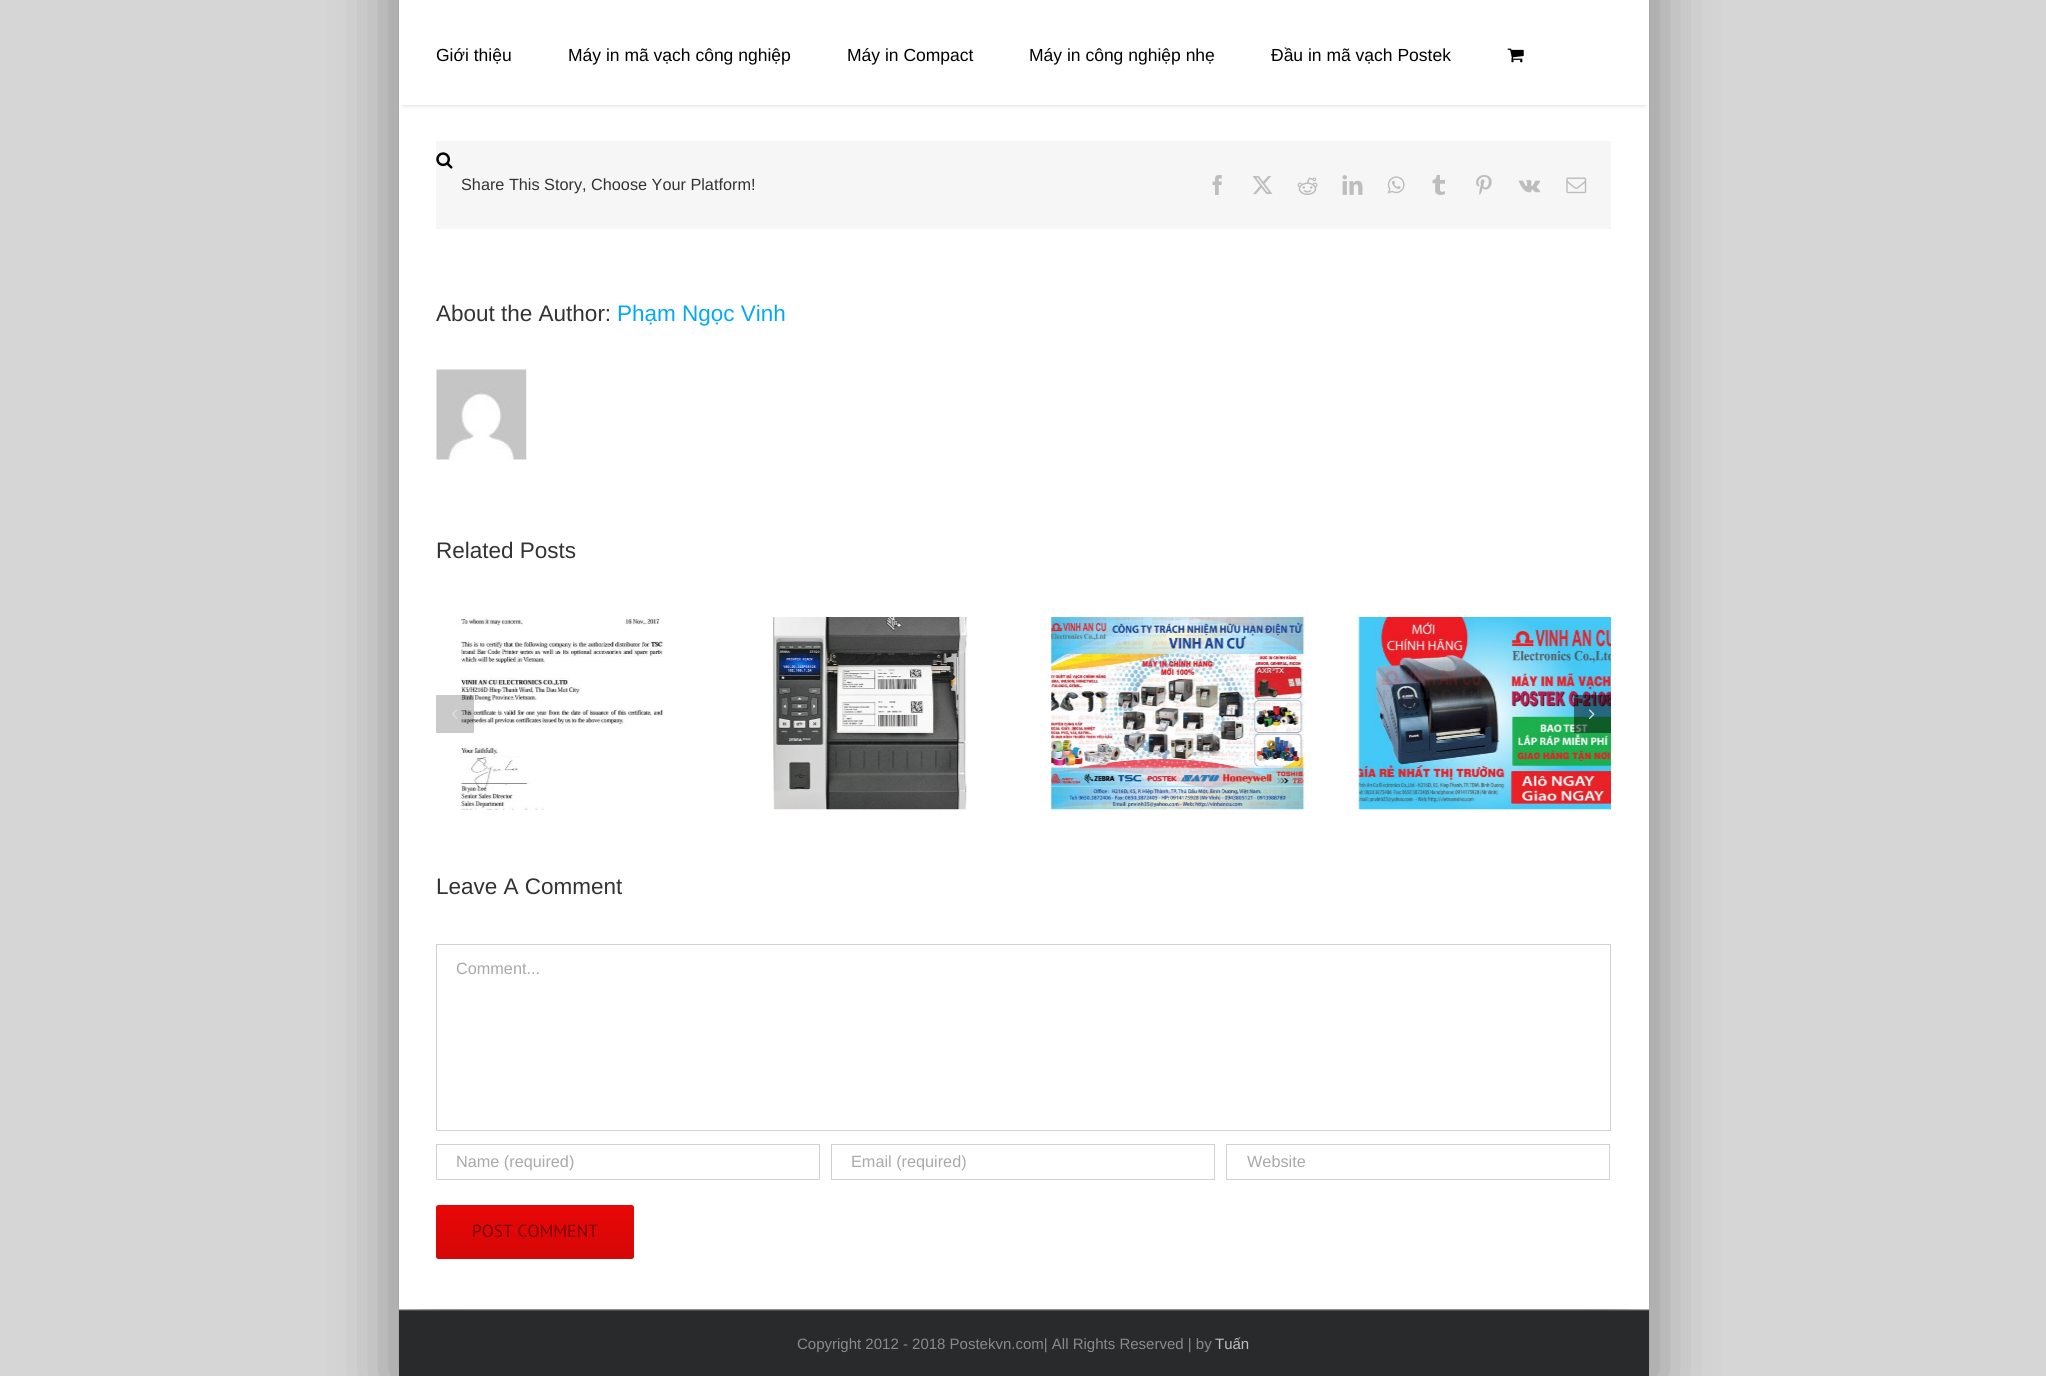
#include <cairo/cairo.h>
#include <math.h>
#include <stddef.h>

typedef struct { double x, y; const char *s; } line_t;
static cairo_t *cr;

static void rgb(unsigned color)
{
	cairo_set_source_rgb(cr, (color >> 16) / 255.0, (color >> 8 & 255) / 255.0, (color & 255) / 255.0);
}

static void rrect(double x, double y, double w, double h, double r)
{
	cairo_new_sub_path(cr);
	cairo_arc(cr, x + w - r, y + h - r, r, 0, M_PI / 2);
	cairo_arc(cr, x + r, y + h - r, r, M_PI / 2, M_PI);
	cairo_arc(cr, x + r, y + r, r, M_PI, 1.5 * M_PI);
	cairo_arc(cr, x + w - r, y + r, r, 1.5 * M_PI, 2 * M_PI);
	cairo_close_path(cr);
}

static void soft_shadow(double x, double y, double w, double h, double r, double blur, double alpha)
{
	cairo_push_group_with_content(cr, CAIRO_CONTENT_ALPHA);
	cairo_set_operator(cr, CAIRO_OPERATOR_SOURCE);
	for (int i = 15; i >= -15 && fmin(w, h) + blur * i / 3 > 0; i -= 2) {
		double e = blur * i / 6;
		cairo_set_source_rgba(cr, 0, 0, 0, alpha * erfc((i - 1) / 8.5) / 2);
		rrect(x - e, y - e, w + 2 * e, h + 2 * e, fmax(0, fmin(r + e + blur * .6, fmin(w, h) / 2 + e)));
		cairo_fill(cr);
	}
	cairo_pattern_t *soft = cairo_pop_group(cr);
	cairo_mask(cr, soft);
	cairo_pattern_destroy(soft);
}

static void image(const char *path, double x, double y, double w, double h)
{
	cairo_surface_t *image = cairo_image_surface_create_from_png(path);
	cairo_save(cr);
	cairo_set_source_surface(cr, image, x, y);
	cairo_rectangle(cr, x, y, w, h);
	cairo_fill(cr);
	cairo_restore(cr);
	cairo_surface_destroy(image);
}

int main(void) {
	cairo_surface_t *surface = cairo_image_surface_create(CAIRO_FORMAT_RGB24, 2046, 1376);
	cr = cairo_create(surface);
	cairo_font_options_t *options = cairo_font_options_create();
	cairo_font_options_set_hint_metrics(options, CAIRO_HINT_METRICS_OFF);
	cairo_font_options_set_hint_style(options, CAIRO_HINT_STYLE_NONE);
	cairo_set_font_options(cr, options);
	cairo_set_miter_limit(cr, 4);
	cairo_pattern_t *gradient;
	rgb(0xd7d6d6);
	cairo_paint(cr);
	rgb(0x000000);
	soft_shadow(393, -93, 1262, 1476, 0, 31, 0.35);
	rgb(0xffffff);
	cairo_rectangle(cr, 399, 105, 1250, 1204);
	cairo_fill(cr);
	rgb(0x000000);
	soft_shadow(403, 9, 1242, 97, 0, 2, 0.12);
	rgb(0xffffff);
	cairo_rectangle(cr, 399, 0, 1250, 105);
	cairo_fill(cr);
	image("img/1.png", 1507, 48, 17, 15);
	rgb(0xf6f6f6);
	cairo_rectangle(cr, 436, 141, 1175, 88);
	cairo_fill(cr);
	image("img/2.png", 436, 152, 17, 17);
	image("img/3.png", 1212, 175, 10, 20);
	image("img/4.png", 1252, 176, 21, 18);
	image("img/5.png", 1297, 177, 21, 18);
	image("img/6.png", 1342, 175, 21, 20);
	image("img/7.png", 1387, 176, 18, 18);
	image("img/8.png", 1432, 175, 13, 20);
	image("img/9.png", 1476, 175, 16, 20);
	image("img/10.png", 1518, 180, 23, 13);
	image("img/11.png", 1566, 177, 21, 17);
	image("img/12.png", 436, 369, 91, 91);
	image("img/14.png", 460, 617, 203, 193);
	cairo_set_source_rgba(cr, 0, 0, 0, 0.21);
	cairo_rectangle(cr, 436, 695, 38, 38);
	cairo_fill(cr);
	image("img/13.png", 452, 709, 5, 10);
	image("img/15.png", 773, 617, 195, 193);
	image("img/16.png", 1051, 617, 254, 193);
	image("img/17.png", 1358, 617, 253, 193);
	cairo_set_source_rgba(cr, 0, 0, 0, 0.48);
	cairo_rectangle(cr, 1574, 695, 37, 38);
	cairo_fill(cr);
	image("img/18.png", 1588, 709, 7, 10);
	cairo_rectangle(cr, 436.5, 944.5, 1174, 186);
	rgb(0xd2d2d2);
	cairo_set_line_width(cr, 1);
	cairo_stroke(cr);
	cairo_rectangle(cr, 436.5, 1144.5, 383, 35);
	cairo_stroke(cr);
	cairo_rectangle(cr, 831.5, 1144.5, 383, 35);
	cairo_stroke(cr);
	cairo_rectangle(cr, 1226.5, 1144.5, 383, 35);
	cairo_stroke(cr);
	gradient = cairo_pattern_create_linear(535, 1205, 535, 1259);
	cairo_pattern_add_color_stop_rgba(gradient, 0, 0.91, 0.027, 0.027, 1);
	cairo_pattern_add_color_stop_rgba(gradient, 1, 0.839, 0.027, 0.027, 1);
	cairo_set_source(cr, gradient);
	cairo_pattern_destroy(gradient);
	rrect(436, 1205, 198, 54, 2.5);
	cairo_fill(cr);
	rgb(0x282a2b);
	cairo_rectangle(cr, 399, 1311, 1250, 65);
	cairo_fill(cr);
	rgb(0x4b4c4d);
	cairo_rectangle(cr, 399, 1310, 1250, 1);
	cairo_fill(cr);
	cairo_select_font_face(cr, "Liberation Sans", CAIRO_FONT_SLANT_NORMAL, CAIRO_FONT_WEIGHT_NORMAL);
	cairo_set_font_size(cr, 17.5);
	rgb(0x000000);
	{
		static const line_t items[] = {
			{436, 61, "Giới thiệu"},
			{568, 61, "Máy in mã vạch công nghiệp"},
			{847, 61, "Máy in Compact"},
			{1029, 61, "Máy in công nghiệp nhẹ"},
			{1271, 61, "Đầu in mã vạch Postek"},
		};
		for (size_t i = 0; i < sizeof items / sizeof *items; i++) {
			cairo_move_to(cr, items[i].x, items[i].y);
			cairo_show_text(cr, items[i].s);
		}
	}
	cairo_set_font_size(cr, 16.25);
	rgb(0x333333);
	cairo_move_to(cr, 461, 190);
	cairo_show_text(cr, "Share This Story, Choose Your Platform!");
	cairo_set_font_size(cr, 22.5);
	cairo_move_to(cr, 436, 321);
	cairo_show_text(cr, "About the Author:");
	rgb(0x03a9f4);
	cairo_move_to(cr, 617, 321);
	cairo_show_text(cr, "Phạm Ngọc Vinh");
	rgb(0x333333);
	cairo_move_to(cr, 436, 558);
	cairo_show_text(cr, "Related Posts");
	cairo_move_to(cr, 436, 894);
	cairo_show_text(cr, "Leave A Comment");
	cairo_set_font_size(cr, 16.25);
	rgb(0xaaa9a9);
	{
		static const line_t items[] = {
			{456, 974, "Comment..."},
			{456, 1167, "Name (required)"},
			{851, 1167, "Email (required)"},
			{1247, 1167, "Website"},
		};
		for (size_t i = 0; i < sizeof items / sizeof *items; i++) {
			cairo_move_to(cr, items[i].x, items[i].y);
			cairo_show_text(cr, items[i].s);
		}
	}
	cairo_select_font_face(cr, "PT Sans", CAIRO_FONT_SLANT_NORMAL, CAIRO_FONT_WEIGHT_NORMAL);
	cairo_set_font_size(cr, 17.5);
	rgb(0x780404);
	cairo_move_to(cr, 472, 1237);
	cairo_show_text(cr, "POST COMMENT");
	cairo_select_font_face(cr, "Liberation Sans", CAIRO_FONT_SLANT_NORMAL, CAIRO_FONT_WEIGHT_NORMAL);
	cairo_set_font_size(cr, 15);
	rgb(0x8c8989);
	cairo_move_to(cr, 797, 1349);
	cairo_show_text(cr, "Copyright 2012 - 2018 Postekvn.com| All Rights Reserved | by");
	rgb(0xbfbfbf);
	cairo_move_to(cr, 1215, 1349);
	cairo_show_text(cr, "Tuấn");
	cairo_surface_write_to_png(surface, "page.png");
	cairo_font_options_destroy(options);
	cairo_destroy(cr);
	cairo_surface_destroy(surface);
	return 0;
}
